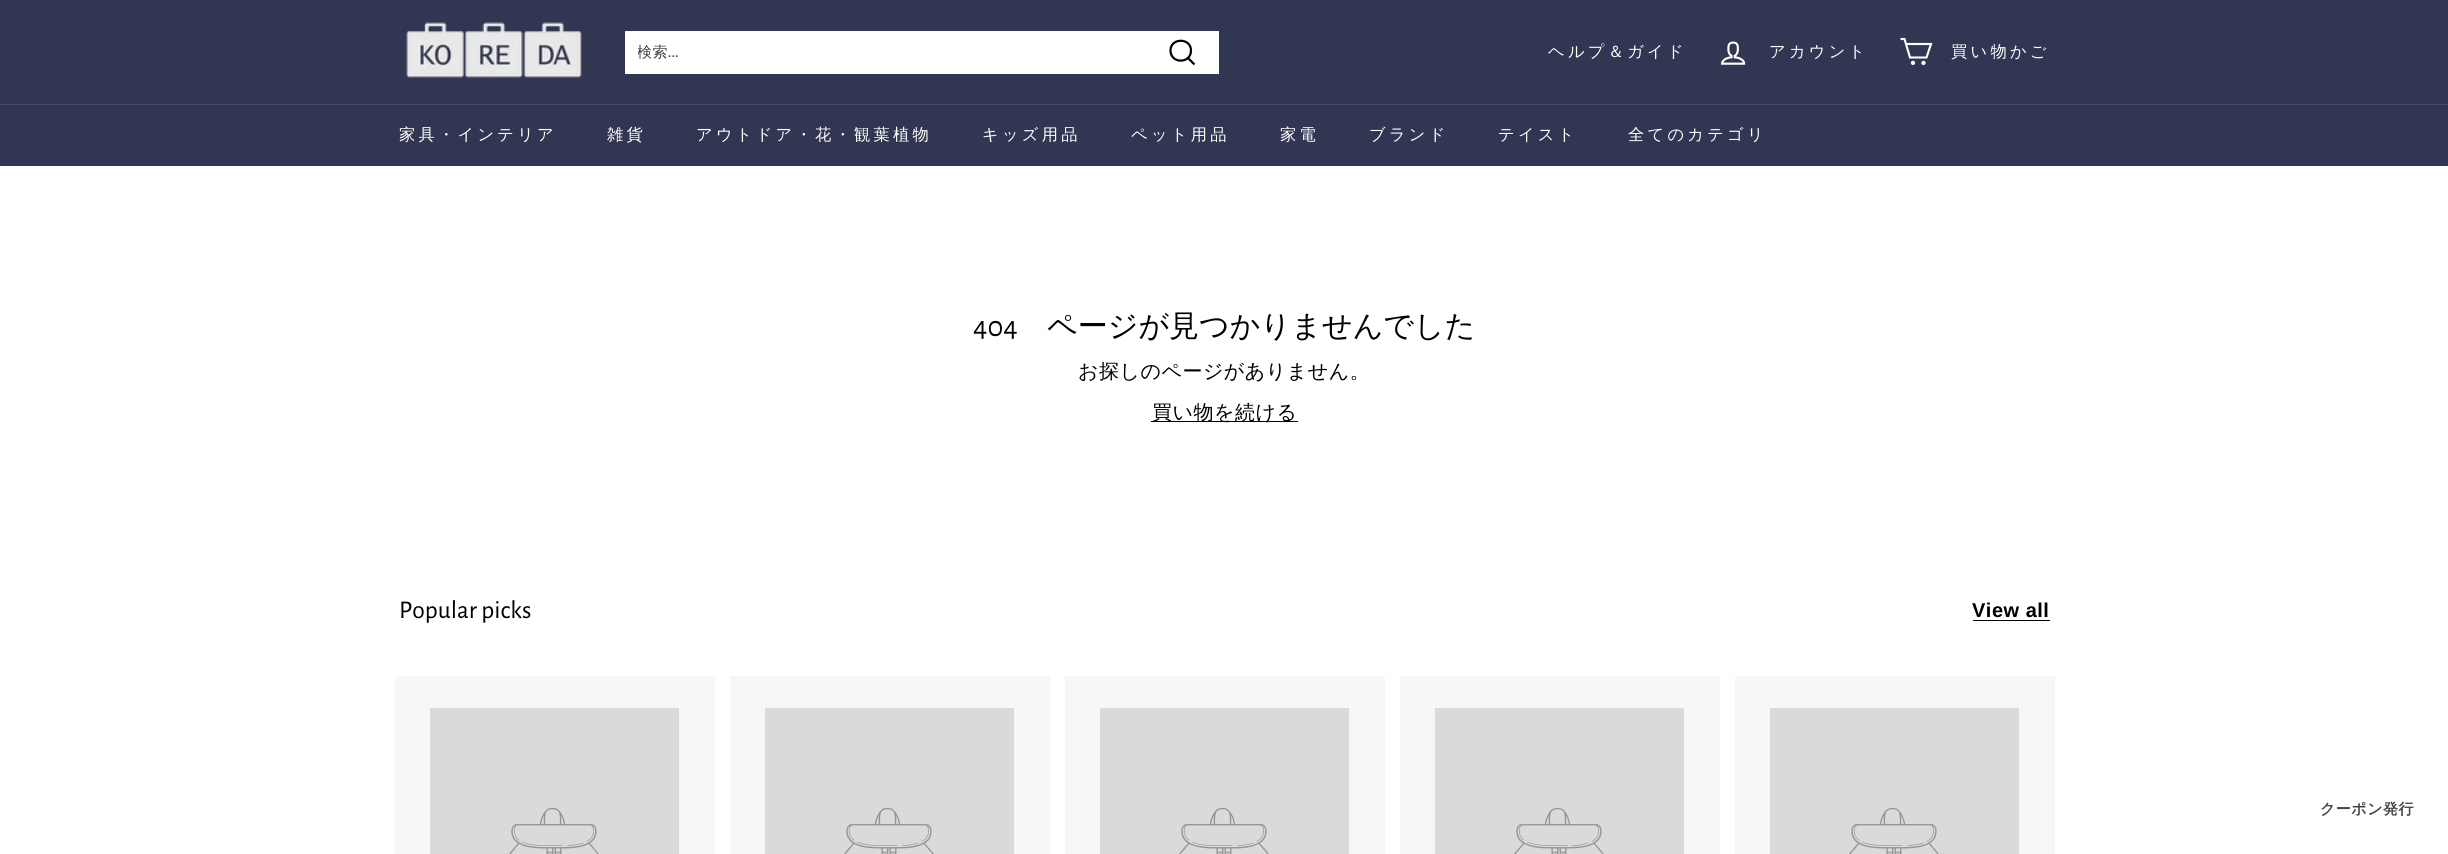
#include <cairo/cairo.h>
#include <math.h>
#include <stddef.h>

typedef struct { double x, y; const char *s; } line_t;
typedef struct { double x, y, w, h; unsigned color; } box_t;
static cairo_t *cr;

static void rgb(unsigned color)
{
	cairo_set_source_rgb(cr, (color >> 16) / 255.0, (color >> 8 & 255) / 255.0, (color & 255) / 255.0);
}

static void tracked(double x, double y, const char *s, double letter, double word)
{
	cairo_move_to(cr, x, y);
	while (*s) {
		char ch[5] = {0};
		int n = 0;
		do ch[n++] = *s++; while ((*s & 0xC0) == 0x80);
		cairo_show_text(cr, ch);
		cairo_rel_move_to(cr, letter + word * (*ch == ' '), 0);
	}
}

static void image(const char *path, double x, double y, double w, double h)
{
	cairo_surface_t *image = cairo_image_surface_create_from_png(path);
	cairo_save(cr);
	cairo_set_source_surface(cr, image, x, y);
	cairo_rectangle(cr, x, y, w, h);
	cairo_fill(cr);
	cairo_restore(cr);
	cairo_surface_destroy(image);
}

int main(void) {
	cairo_surface_t *surface = cairo_image_surface_create(CAIRO_FORMAT_RGB24, 2448, 854);
	cr = cairo_create(surface);
	cairo_font_options_t *options = cairo_font_options_create();
	cairo_font_options_set_hint_metrics(options, CAIRO_HINT_METRICS_OFF);
	cairo_font_options_set_hint_style(options, CAIRO_HINT_STYLE_NONE);
	cairo_set_font_options(cr, options);
	cairo_set_miter_limit(cr, 4);
	rgb(0xffffff);
	cairo_paint(cr);
	{
		static const box_t items[] = {
			{1735, 676, 320, 178, 0xf7f7f7},
			{1400, 676, 320, 178, 0xf7f7f7},
			{1065, 676, 320, 178, 0xf7f7f7},
			{730, 676, 320, 178, 0xf7f7f7},
			{395, 676, 320, 178, 0xf7f7f7},
			{0, 0, 2448, 104, 0x313652},
		};
		for (size_t i = 0; i < sizeof items / sizeof *items; i++) {
			rgb(items[i].color);
			cairo_rectangle(cr, items[i].x, items[i].y, items[i].w, items[i].h);
			cairo_fill(cr);
		}
	}
	image("img/1.png", 406, 22, 176, 56);
	rgb(0xffffff);
	cairo_rectangle(cr, 625, 31, 594, 43);
	cairo_fill(cr);
	cairo_new_path(cr);
	cairo_move_to(cr, 1191, 50.5);
	cairo_curve_to(cr, 1191, 64, 1170.5, 64, 1170.5, 50.5);
	cairo_curve_to(cr, 1170.5, 37.5, 1191, 37.5, 1191, 50.5);
	cairo_close_path(cr);
	cairo_move_to(cr, 1194.5, 64.5);
	cairo_line_to(cr, 1188, 58);
	rgb(0x000000);
	cairo_set_line_width(cr, 2.2);
	cairo_stroke(cr);
	image("img/2.png", 1721, 41, 25, 24);
	cairo_new_path(cr);
	cairo_move_to(cr, 1906, 44);
	cairo_line_to(cr, 1931, 44);
	cairo_line_to(cr, 1926.5, 57.5);
	cairo_line_to(cr, 1910, 57.5);
	cairo_line_to(cr, 1904.5, 39);
	cairo_line_to(cr, 1900.5, 39);
	rgb(0xffffff);
	cairo_set_line_width(cr, 2.1);
	cairo_stroke(cr);
	cairo_arc(cr, 1913, 62.9, 1.1, 0, 2 * M_PI);
	cairo_stroke(cr);
	cairo_arc(cr, 1923.5, 62.9, 1.1, 0, 2 * M_PI);
	cairo_stroke(cr);
	rgb(0x313652);
	cairo_new_path(cr);
	cairo_move_to(cr, 0, 104);
	cairo_line_to(cr, 0, 166);
	cairo_line_to(cr, 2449, 166);
	cairo_line_to(cr, 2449, 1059);
	cairo_line_to(cr, 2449, 104);
	cairo_close_path(cr);
	cairo_fill(cr);
	{
		static const box_t items[] = {
			{0, 104, 2448, 1, 0x464a63},
			{1151, 421, 147, 1, 0x000000},
			{1973, 620, 77, 1, 0x000000},
			{430, 708, 249, 146, 0xdadada},
		};
		for (size_t i = 0; i < sizeof items / sizeof *items; i++) {
			rgb(items[i].color);
			cairo_rectangle(cr, items[i].x, items[i].y, items[i].w, items[i].h);
			cairo_fill(cr);
		}
	}
	image("img/3.png", 509, 808, 90, 46);
	cairo_rectangle(cr, 765, 708, 249, 146);
	cairo_fill(cr);
	image("img/3.png", 844, 808, 90, 46);
	cairo_rectangle(cr, 1100, 708, 249, 146);
	cairo_fill(cr);
	image("img/3.png", 1179, 808, 90, 46);
	cairo_rectangle(cr, 1435, 708, 249, 146);
	cairo_fill(cr);
	image("img/3.png", 1514, 808, 90, 46);
	cairo_rectangle(cr, 1770, 708, 249, 146);
	cairo_fill(cr);
	image("img/3.png", 1849, 808, 90, 46);
	cairo_save(cr);
	cairo_rectangle(cr, 638, 41, 501, 23);
	cairo_clip(cr);
	cairo_select_font_face(cr, "WenQuanYi Zen Hei Medium", CAIRO_FONT_SLANT_NORMAL, CAIRO_FONT_WEIGHT_NORMAL);
	cairo_set_font_size(cr, 15);
	rgb(0x434343);
	tracked(637, 57, "検索", 0.5, 0);
	cairo_restore(cr);
	cairo_select_font_face(cr, "Poppins", CAIRO_FONT_SLANT_NORMAL, CAIRO_FONT_WEIGHT_NORMAL);
	cairo_set_font_size(cr, 15);
	rgb(0x434343);
	tracked(668, 57, "...", 0.5, 0);
	cairo_select_font_face(cr, "WenQuanYi Zen Hei Medium", CAIRO_FONT_SLANT_NORMAL, CAIRO_FONT_WEIGHT_NORMAL);
	cairo_set_font_size(cr, 16.25);
	rgb(0xffffff);
	{
		static const line_t items[] = {
			{1548, 57, "ヘルプ＆ガイド"},
			{1769, 57, "アカウント"},
			{1951, 57, "買い物かご"},
			{399, 140, "家具・インテリア"},
			{607, 140, "雑貨"},
			{696, 140, "アウトドア・花・観葉植物"},
			{982, 140, "キッズ用品"},
			{1131, 140, "ペット用品"},
			{1280, 140, "家電"},
			{1369, 140, "ブランド"},
			{1498, 140, "テイスト"},
			{1628, 140, "全てのカテゴリ"},
		};
		for (size_t i = 0; i < sizeof items / sizeof *items; i++) {
			tracked(items[i].x, items[i].y, items[i].s, 3.25, 0);
		}
	}
	cairo_select_font_face(cr, "Alegreya Sans", CAIRO_FONT_SLANT_NORMAL, CAIRO_FONT_WEIGHT_NORMAL);
	cairo_set_font_size(cr, 30);
	rgb(0x000000);
	cairo_move_to(cr, 973, 336);
	cairo_show_text(cr, "404");
	cairo_select_font_face(cr, "WenQuanYi Zen Hei Medium", CAIRO_FONT_SLANT_NORMAL, CAIRO_FONT_WEIGHT_NORMAL);
	cairo_move_to(cr, 1047, 336);
	cairo_show_text(cr, "ページが見つかりませんでした");
	cairo_set_font_size(cr, 20);
	tracked(1078, 378, "お探しのページがありません。", 0.5, 0);
	tracked(1152, 419, "買い物を続ける", 0.5, 0);
	cairo_select_font_face(cr, "Alegreya Sans", CAIRO_FONT_SLANT_NORMAL, CAIRO_FONT_WEIGHT_NORMAL);
	cairo_set_font_size(cr, 25.5);
	cairo_move_to(cr, 399, 618);
	cairo_show_text(cr, "Popular picks");
	cairo_select_font_face(cr, "Liberation Sans", CAIRO_FONT_SLANT_NORMAL, CAIRO_FONT_WEIGHT_BOLD);
	cairo_set_font_size(cr, 20);
	tracked(1972, 617, "View all", 0.5, 0);
	cairo_select_font_face(cr, "WenQuanYi Zen Hei", CAIRO_FONT_SLANT_NORMAL, CAIRO_FONT_WEIGHT_BOLD);
	cairo_set_font_size(cr, 15);
	rgb(0x434343);
	tracked(2320, 814, "クーポン発行", 0.5, 0);
	cairo_surface_write_to_png(surface, "page.png");
	cairo_font_options_destroy(options);
	cairo_destroy(cr);
	cairo_surface_destroy(surface);
	return 0;
}
